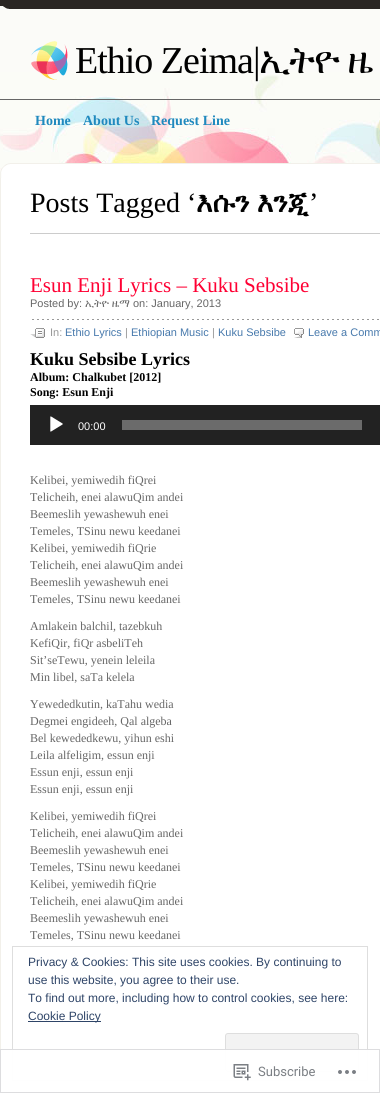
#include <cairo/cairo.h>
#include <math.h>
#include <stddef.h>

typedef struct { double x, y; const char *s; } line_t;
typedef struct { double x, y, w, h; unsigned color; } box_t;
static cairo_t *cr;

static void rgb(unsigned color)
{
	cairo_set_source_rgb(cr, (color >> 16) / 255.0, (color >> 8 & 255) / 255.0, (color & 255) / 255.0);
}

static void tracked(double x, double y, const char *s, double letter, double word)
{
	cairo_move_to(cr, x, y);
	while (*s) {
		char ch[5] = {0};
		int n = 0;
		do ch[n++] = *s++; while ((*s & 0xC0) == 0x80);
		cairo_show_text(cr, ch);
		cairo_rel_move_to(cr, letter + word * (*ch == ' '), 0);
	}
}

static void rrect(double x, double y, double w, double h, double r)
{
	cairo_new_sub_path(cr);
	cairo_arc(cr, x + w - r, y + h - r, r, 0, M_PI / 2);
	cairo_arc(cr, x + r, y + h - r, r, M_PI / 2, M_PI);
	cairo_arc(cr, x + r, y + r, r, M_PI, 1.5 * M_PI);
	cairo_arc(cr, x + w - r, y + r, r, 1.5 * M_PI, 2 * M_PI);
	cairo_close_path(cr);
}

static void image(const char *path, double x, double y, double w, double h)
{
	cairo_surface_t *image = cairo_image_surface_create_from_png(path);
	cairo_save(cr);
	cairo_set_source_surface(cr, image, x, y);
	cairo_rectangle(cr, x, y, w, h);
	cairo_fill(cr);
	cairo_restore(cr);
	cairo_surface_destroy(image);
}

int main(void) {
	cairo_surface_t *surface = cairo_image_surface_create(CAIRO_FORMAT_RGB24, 380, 1093);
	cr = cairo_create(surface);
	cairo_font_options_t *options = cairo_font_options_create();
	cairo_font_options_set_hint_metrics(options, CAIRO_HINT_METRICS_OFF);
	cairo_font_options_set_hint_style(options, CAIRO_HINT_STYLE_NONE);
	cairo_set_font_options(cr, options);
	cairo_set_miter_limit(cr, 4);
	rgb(0xfbfbf8);
	cairo_paint(cr);
	image("img/1.png", 0, 72, 380, 98);
	rgb(0x2a2623);
	cairo_rectangle(cr, 0, 0, 380, 6);
	cairo_fill(cr);
	image("img/2.png", 3, 6, 377, 3);
	rgb(0x666666);
	cairo_rectangle(cr, 0, 99, 380, 1);
	cairo_fill(cr);
	image("img/3.png", 31, 41, 37, 39);
	image("img/4.png", 0, 163, 380, 15);
	{
		static const box_t items[] = {
			{1, 178, 379, 915, 0xffffff},
			{0, 178, 1, 915, 0xf2f0ea},
			{30, 233, 350, 1, 0xcccccc},
		};
		for (size_t i = 0; i < sizeof items / sizeof *items; i++) {
			rgb(items[i].color);
			cairo_rectangle(cr, items[i].x, items[i].y, items[i].w, items[i].h);
			cairo_fill(cr);
		}
	}
	image("img/5.png", 32, 319, 347, 1);
	image("img/6.png", 30, 328, 15, 10);
	image("img/7.png", 294, 328, 10, 10);
	rgb(0x222222);
	cairo_rectangle(cr, 30, 405, 350, 40);
	cairo_fill(cr);
	image("img/8.png", 50, 416, 13, 16);
	rgb(0x6b6b6b);
	cairo_rectangle(cr, 122, 420, 240, 10);
	cairo_fill(cr);
	cairo_rectangle(cr, 12.5, 946.5, 355, 134);
	rgb(0xdedede);
	cairo_set_line_width(cr, 1);
	cairo_stroke(cr);
	rgb(0x2e4467);
	cairo_rectangle(cr, 28, 1021, 73, 1);
	cairo_fill(cr);
	rgb(0xf3f3f3);
	rrect(225.5, 1033.5, 133, 38, 2.5);
	cairo_fill_preserve(cr);
	rgb(0xdedede);
	cairo_stroke(cr);
	cairo_set_source_rgba(cr, 1, 1, 1, 0.98);
	cairo_rectangle(cr, 0, 1049, 368, 44);
	cairo_fill(cr);
	cairo_rectangle(cr, 0.5, 1049.5, 379, 43);
	cairo_set_source_rgba(cr, 0.863, 0.863, 0.871, 0.98);
	cairo_stroke(cr);
	image("img/9.png", 233, 1064, 18, 17);
	image("img/10.png", 338, 1070, 18, 4);
	cairo_select_font_face(cr, "Liberation Serif", CAIRO_FONT_SLANT_NORMAL, CAIRO_FONT_WEIGHT_NORMAL);
	cairo_set_font_size(cr, 38);
	rgb(0x000000);
	tracked(75, 73, "Ethio Zeima|", -1, 0);
	cairo_select_font_face(cr, "FreeSerif", CAIRO_FONT_SLANT_NORMAL, CAIRO_FONT_WEIGHT_NORMAL);
	tracked(259, 73, "ኢትዮ ዜ", -1, 0);
	cairo_select_font_face(cr, "Liberation Serif", CAIRO_FONT_SLANT_NORMAL, CAIRO_FONT_WEIGHT_BOLD);
	cairo_set_font_size(cr, 14);
	rgb(0x1f89be);
	{
		static const line_t items[] = {
			{35, 125, "Home"},
			{83, 125, "About Us"},
			{151, 125, "Request Line"},
		};
		for (size_t i = 0; i < sizeof items / sizeof *items; i++) {
			cairo_move_to(cr, items[i].x, items[i].y);
			cairo_show_text(cr, items[i].s);
		}
	}
	cairo_select_font_face(cr, "Liberation Serif", CAIRO_FONT_SLANT_NORMAL, CAIRO_FONT_WEIGHT_NORMAL);
	cairo_set_font_size(cr, 28);
	rgb(0x000000);
	cairo_move_to(cr, 30, 212);
	cairo_show_text(cr, "Posts Tagged ‘");
	cairo_select_font_face(cr, "FreeSerif", CAIRO_FONT_SLANT_NORMAL, CAIRO_FONT_WEIGHT_BOLD);
	cairo_move_to(cr, 196, 212);
	cairo_show_text(cr, "እሱን እንጂ");
	cairo_select_font_face(cr, "Liberation Serif", CAIRO_FONT_SLANT_NORMAL, CAIRO_FONT_WEIGHT_NORMAL);
	cairo_move_to(cr, 309, 212);
	cairo_show_text(cr, "’");
	cairo_set_font_size(cr, 21);
	rgb(0xff0033);
	cairo_move_to(cr, 30, 292);
	cairo_show_text(cr, "Esun Enji Lyrics – Kuku Sebsibe");
	cairo_select_font_face(cr, "Liberation Sans", CAIRO_FONT_SLANT_NORMAL, CAIRO_FONT_WEIGHT_NORMAL);
	cairo_set_font_size(cr, 11);
	rgb(0x666666);
	cairo_move_to(cr, 30, 307);
	cairo_show_text(cr, "Posted by:");
	cairo_select_font_face(cr, "FreeSerif", CAIRO_FONT_SLANT_NORMAL, CAIRO_FONT_WEIGHT_NORMAL);
	cairo_move_to(cr, 85, 307);
	cairo_show_text(cr, "ኢትዮ ዜማ");
	cairo_select_font_face(cr, "Liberation Sans", CAIRO_FONT_SLANT_NORMAL, CAIRO_FONT_WEIGHT_NORMAL);
	cairo_move_to(cr, 133, 307);
	cairo_show_text(cr, "on: January, 2013");
	rgb(0x999999);
	cairo_move_to(cr, 50, 336);
	cairo_show_text(cr, "In:");
	rgb(0x4779ac);
	cairo_move_to(cr, 65, 336);
	cairo_show_text(cr, "Ethio Lyrics");
	rgb(0x999999);
	cairo_move_to(cr, 125, 336);
	cairo_show_text(cr, "|");
	rgb(0x4779ac);
	cairo_move_to(cr, 131, 336);
	cairo_show_text(cr, "Ethiopian Music");
	rgb(0x999999);
	cairo_move_to(cr, 212, 336);
	cairo_show_text(cr, "|");
	rgb(0x4779ac);
	cairo_move_to(cr, 218, 336);
	cairo_show_text(cr, "Kuku Sebsibe");
	cairo_move_to(cr, 308, 336);
	cairo_show_text(cr, "Leave a Comm");
	cairo_select_font_face(cr, "Liberation Serif", CAIRO_FONT_SLANT_NORMAL, CAIRO_FONT_WEIGHT_BOLD);
	cairo_set_font_size(cr, 18);
	rgb(0x000000);
	cairo_move_to(cr, 30, 365);
	cairo_show_text(cr, "Kuku Sebsibe Lyrics");
	cairo_set_font_size(cr, 12);
	cairo_move_to(cr, 30, 381);
	cairo_show_text(cr, "Album: Chalkubet [2012]");
	cairo_move_to(cr, 30, 396);
	cairo_show_text(cr, "Song: Esun Enji");
	cairo_select_font_face(cr, "Liberation Sans", CAIRO_FONT_SLANT_NORMAL, CAIRO_FONT_WEIGHT_NORMAL);
	cairo_set_font_size(cr, 11);
	rgb(0xffffff);
	cairo_move_to(cr, 78, 430);
	cairo_show_text(cr, "00:00");
	cairo_select_font_face(cr, "Liberation Serif", CAIRO_FONT_SLANT_NORMAL, CAIRO_FONT_WEIGHT_NORMAL);
	cairo_set_font_size(cr, 12);
	rgb(0x666666);
	{
		static const line_t items[] = {
			{30, 484, "Kelibei, yemiwedih fiQrei"},
			{30, 501, "Telicheih, enei alawuQim andei"},
			{30, 518, "Beemeslih yewashewuh enei"},
			{30, 535, "Temeles, TSinu newu keedanei"},
			{30, 552, "Kelibei, yemiwedih fiQrie"},
			{30, 569, "Telicheih, enei alawuQim andei"},
			{30, 586, "Beemeslih yewashewuh enei"},
			{30, 603, "Temeles, TSinu newu keedanei"},
			{30, 630, "Amlakein balchil, tazebkuh"},
			{30, 647, "KefiQir, fiQr asbeliTeh"},
			{30, 664, "Sit’seTewu, yenein leleila"},
			{30, 681, "Min libel, saTa kelela"},
			{30, 708, "Yewededkutin, kaTahu wedia"},
			{30, 725, "Degmei engideeh, Qal algeba"},
			{30, 742, "Bel kewededkewu, yihun eshi"},
			{30, 759, "Leila alfeligim, essun enji"},
			{30, 776, "Essun enji, essun enji"},
			{30, 793, "Essun enji, essun enji"},
			{30, 820, "Kelibei, yemiwedih fiQrei"},
			{30, 837, "Telicheih, enei alawuQim andei"},
			{30, 854, "Beemeslih yewashewuh enei"},
			{30, 871, "Temeles, TSinu newu keedanei"},
			{30, 888, "Kelibei, yemiwedih fiQrie"},
			{30, 905, "Telicheih, enei alawuQim andei"},
			{30, 922, "Beemeslih yewashewuh enei"},
			{30, 939, "Temeles, TSinu newu keedanei"},
		};
		for (size_t i = 0; i < sizeof items / sizeof *items; i++) {
			cairo_move_to(cr, items[i].x, items[i].y);
			cairo_show_text(cr, items[i].s);
		}
	}
	cairo_select_font_face(cr, "Liberation Sans", CAIRO_FONT_SLANT_NORMAL, CAIRO_FONT_WEIGHT_NORMAL);
	rgb(0x2e4467);
	{
		static const line_t items[] = {
			{28, 966, "Privacy & Cookies: This site uses cookies. By continuing to"},
			{28, 984, "use this website, you agree to their use."},
			{28, 1002, "To find out more, including how to control cookies, see here:"},
			{28, 1020, "Cookie Policy"},
		};
		for (size_t i = 0; i < sizeof items / sizeof *items; i++) {
			cairo_move_to(cr, items[i].x, items[i].y);
			cairo_show_text(cr, items[i].s);
		}
	}
	cairo_select_font_face(cr, "Roboto", CAIRO_FONT_SLANT_NORMAL, CAIRO_FONT_WEIGHT_NORMAL);
	cairo_set_font_size(cr, 13);
	rgb(0x7b7f84);
	cairo_move_to(cr, 258, 1076);
	cairo_show_text(cr, "Subscribe");
	cairo_surface_write_to_png(surface, "page.png");
	cairo_font_options_destroy(options);
	cairo_destroy(cr);
	cairo_surface_destroy(surface);
	return 0;
}
